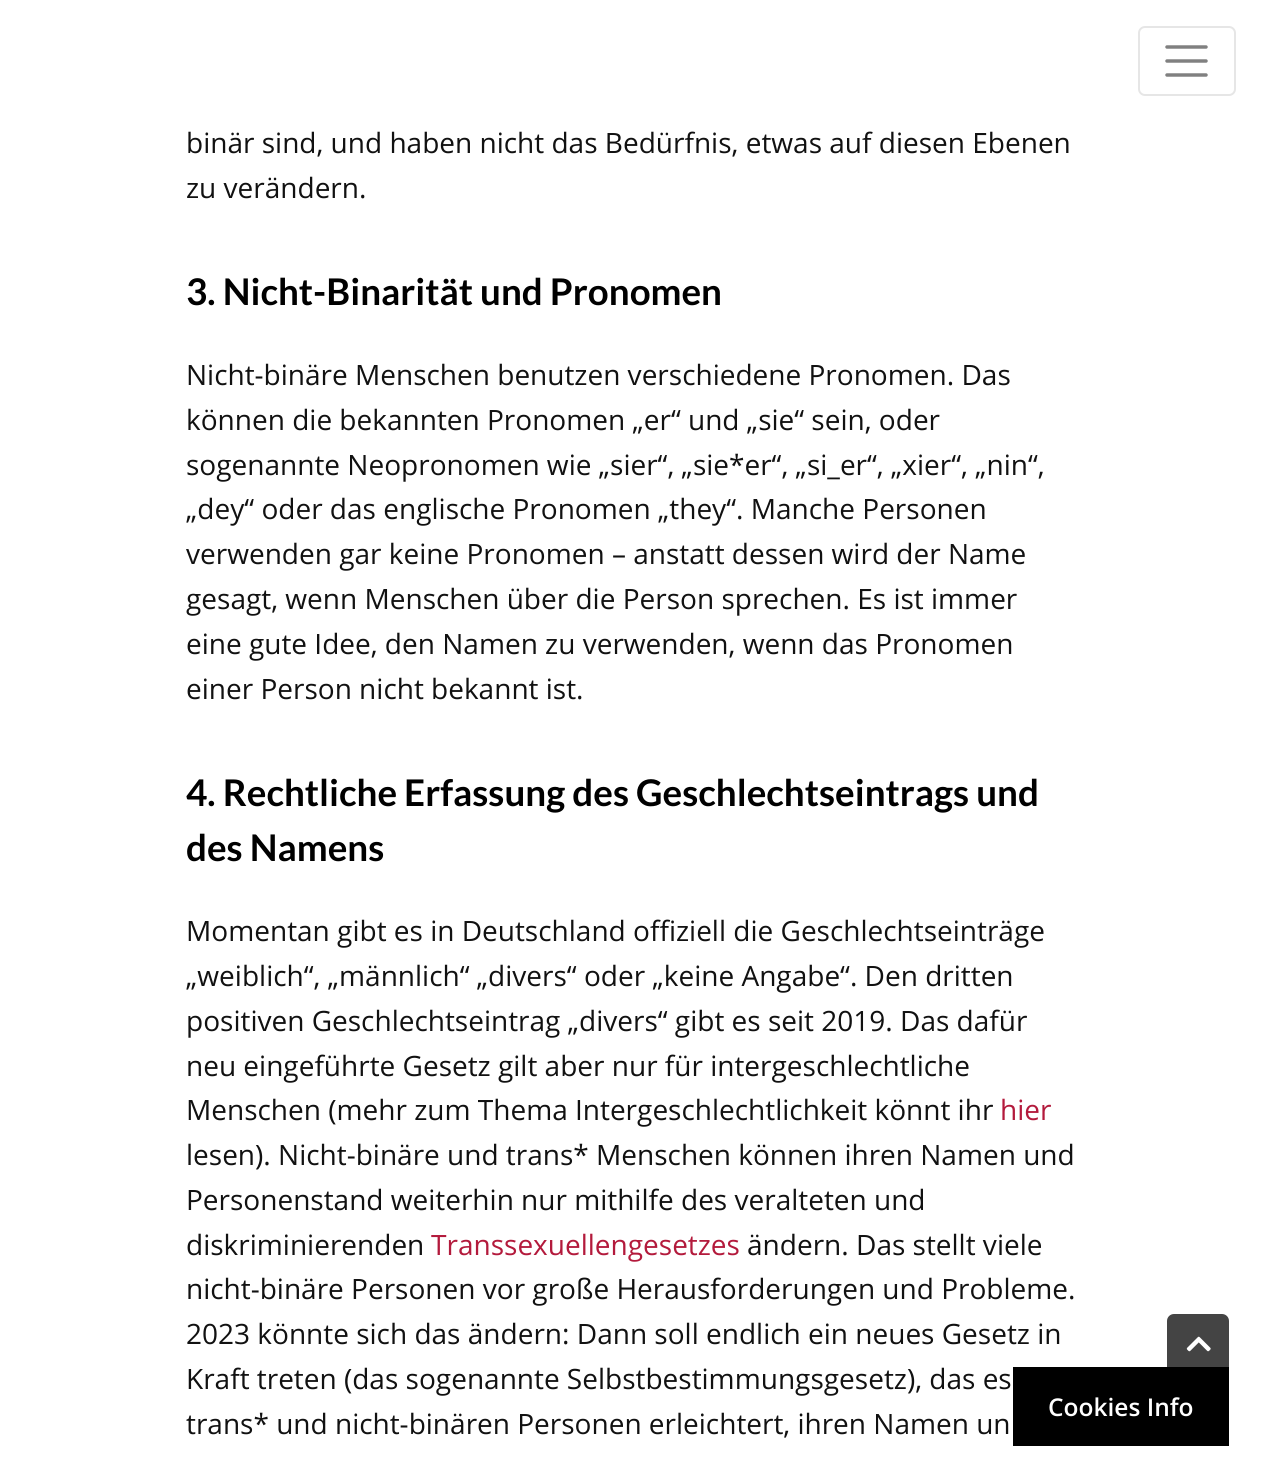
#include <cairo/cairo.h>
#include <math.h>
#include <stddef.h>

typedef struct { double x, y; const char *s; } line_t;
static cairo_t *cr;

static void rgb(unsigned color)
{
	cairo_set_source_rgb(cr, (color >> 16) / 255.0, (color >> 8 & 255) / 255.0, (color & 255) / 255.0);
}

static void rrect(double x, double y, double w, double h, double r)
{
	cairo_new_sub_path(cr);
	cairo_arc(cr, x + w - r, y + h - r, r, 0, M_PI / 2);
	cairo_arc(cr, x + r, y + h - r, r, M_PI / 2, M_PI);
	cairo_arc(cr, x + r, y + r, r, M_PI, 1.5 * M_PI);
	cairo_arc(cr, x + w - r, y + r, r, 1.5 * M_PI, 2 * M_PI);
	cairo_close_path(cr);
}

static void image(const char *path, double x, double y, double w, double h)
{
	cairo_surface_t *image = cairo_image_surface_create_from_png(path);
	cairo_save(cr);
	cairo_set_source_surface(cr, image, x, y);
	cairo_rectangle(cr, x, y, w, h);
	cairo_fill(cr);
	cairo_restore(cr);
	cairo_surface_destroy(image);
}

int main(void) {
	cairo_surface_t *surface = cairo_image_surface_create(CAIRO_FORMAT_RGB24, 1263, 1462);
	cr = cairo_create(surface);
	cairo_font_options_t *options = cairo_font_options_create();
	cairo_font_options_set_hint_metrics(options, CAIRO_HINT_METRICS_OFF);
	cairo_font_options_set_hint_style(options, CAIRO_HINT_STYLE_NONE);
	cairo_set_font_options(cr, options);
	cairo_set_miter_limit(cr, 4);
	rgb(0xffffff);
	cairo_paint(cr);
	rrect(1139, 27, 96, 68, 6);
	rgb(0xe6e6e6);
	cairo_stroke(cr);
	cairo_new_path(cr);
	cairo_move_to(cr, 1167, 47);
	cairo_line_to(cr, 1206, 47);
	cairo_move_to(cr, 1167, 61);
	cairo_line_to(cr, 1206, 61);
	cairo_move_to(cr, 1167, 75);
	cairo_line_to(cr, 1206, 75);
	rgb(0x808080);
	cairo_set_line_width(cr, 3.5);
	cairo_set_line_cap(cr, CAIRO_LINE_CAP_ROUND);
	cairo_stroke(cr);
	rgb(0x444444);
	rrect(1167, 1314, 62, 62, 7);
	cairo_fill(cr);
	image("img/1.png", 1186, 1336, 25, 16);
	rgb(0x000000);
	cairo_rectangle(cr, 1013, 1367, 216, 79);
	cairo_fill(cr);
	cairo_select_font_face(cr, "Open Sans", CAIRO_FONT_SLANT_NORMAL, CAIRO_FONT_WEIGHT_NORMAL);
	cairo_set_font_size(cr, 28);
	rgb(0x111111);
	cairo_move_to(cr, 186, 153);
	cairo_show_text(cr, "binär sind, und haben nicht das Bedürfnis, etwas auf diesen Ebenen");
	cairo_move_to(cr, 186, 198);
	cairo_show_text(cr, "zu verändern.");
	cairo_select_font_face(cr, "Lato", CAIRO_FONT_SLANT_NORMAL, CAIRO_FONT_WEIGHT_BOLD);
	cairo_set_font_size(cr, 36.75);
	rgb(0x000000);
	cairo_move_to(cr, 186, 305);
	cairo_show_text(cr, "3. Nicht-Binarität und Pronomen");
	cairo_select_font_face(cr, "Open Sans", CAIRO_FONT_SLANT_NORMAL, CAIRO_FONT_WEIGHT_NORMAL);
	cairo_set_font_size(cr, 28);
	rgb(0x111111);
	{
		static const line_t items[] = {
			{186, 385, "Nicht-binäre Menschen benutzen verschiedene Pronomen. Das"},
			{186, 430, "können die bekannten Pronomen „er“ und „sie“ sein, oder"},
			{186, 475, "sogenannte Neopronomen wie „sier“, „sie*er“, „si_er“, „xier“, „nin“,"},
			{186, 519, "„dey“ oder das englische Pronomen „they“. Manche Personen"},
			{186, 564, "verwenden gar keine Pronomen – anstatt dessen wird der Name"},
			{186, 609, "gesagt, wenn Menschen über die Person sprechen. Es ist immer"},
			{186, 654, "eine gute Idee, den Namen zu verwenden, wenn das Pronomen"},
			{186, 699, "einer Person nicht bekannt ist."},
		};
		for (size_t i = 0; i < sizeof items / sizeof *items; i++) {
			cairo_move_to(cr, items[i].x, items[i].y);
			cairo_show_text(cr, items[i].s);
		}
	}
	cairo_select_font_face(cr, "Lato", CAIRO_FONT_SLANT_NORMAL, CAIRO_FONT_WEIGHT_BOLD);
	cairo_set_font_size(cr, 36.75);
	rgb(0x000000);
	cairo_move_to(cr, 186, 806);
	cairo_show_text(cr, "4. Rechtliche Erfassung des Geschlechtseintrags und");
	cairo_move_to(cr, 186, 861);
	cairo_show_text(cr, "des Namens");
	cairo_select_font_face(cr, "Open Sans", CAIRO_FONT_SLANT_NORMAL, CAIRO_FONT_WEIGHT_NORMAL);
	cairo_set_font_size(cr, 28);
	rgb(0x111111);
	{
		static const line_t items[] = {
			{186, 941, "Momentan gibt es in Deutschland offiziell die Geschlechtseinträge"},
			{186, 986, "„weiblich“, „männlich“ „divers“ oder „keine Angabe“. Den dritten"},
			{186, 1031, "positiven Geschlechtseintrag „divers“ gibt es seit 2019. Das dafür"},
			{186, 1076, "neu eingeführte Gesetz gilt aber nur für intergeschlechtliche"},
			{186, 1120, "Menschen (mehr zum Thema Intergeschlechtlichkeit könnt ihr"},
		};
		for (size_t i = 0; i < sizeof items / sizeof *items; i++) {
			cairo_move_to(cr, items[i].x, items[i].y);
			cairo_show_text(cr, items[i].s);
		}
	}
	rgb(0xb31a3c);
	cairo_move_to(cr, 1000, 1120);
	cairo_show_text(cr, "hier");
	rgb(0x111111);
	{
		static const line_t items[] = {
			{186, 1165, "lesen). Nicht-binäre und trans* Menschen können ihren Namen und"},
			{186, 1210, "Personenstand weiterhin nur mithilfe des veralteten und"},
			{186, 1255, "diskriminierenden"},
		};
		for (size_t i = 0; i < sizeof items / sizeof *items; i++) {
			cairo_move_to(cr, items[i].x, items[i].y);
			cairo_show_text(cr, items[i].s);
		}
	}
	rgb(0xb31a3c);
	cairo_move_to(cr, 431, 1255);
	cairo_show_text(cr, "Transsexuellengesetzes");
	rgb(0x111111);
	{
		static const line_t items[] = {
			{747, 1255, "ändern. Das stellt viele"},
			{186, 1299, "nicht-binäre Personen vor große Herausforderungen und Probleme."},
			{186, 1344, "2023 könnte sich das ändern: Dann soll endlich ein neues Gesetz in"},
			{186, 1389, "Kraft treten (das sogenannte Selbstbestimmungsgesetz), das es"},
			{186, 1434, "trans* und nicht-binären Personen erleichtert, ihren Namen un"},
		};
		for (size_t i = 0; i < sizeof items / sizeof *items; i++) {
			cairo_move_to(cr, items[i].x, items[i].y);
			cairo_show_text(cr, items[i].s);
		}
	}
	cairo_select_font_face(cr, "Open Sans SemiBold", CAIRO_FONT_SLANT_NORMAL, CAIRO_FONT_WEIGHT_NORMAL);
	cairo_set_font_size(cr, 24.5);
	rgb(0xffffff);
	cairo_move_to(cr, 1048, 1416);
	cairo_show_text(cr, "Cookies Info");
	cairo_surface_write_to_png(surface, "page.png");
	cairo_font_options_destroy(options);
	cairo_destroy(cr);
	cairo_surface_destroy(surface);
	return 0;
}
